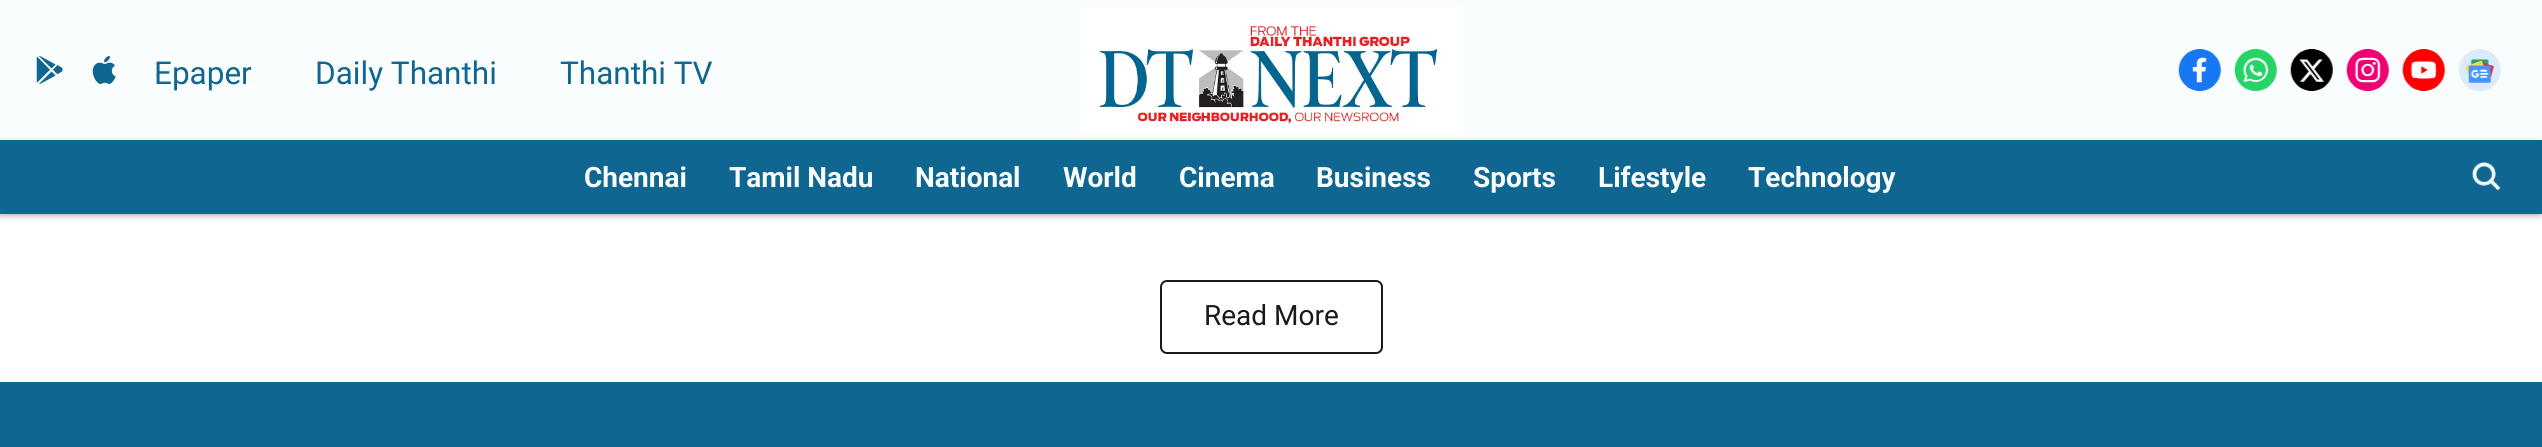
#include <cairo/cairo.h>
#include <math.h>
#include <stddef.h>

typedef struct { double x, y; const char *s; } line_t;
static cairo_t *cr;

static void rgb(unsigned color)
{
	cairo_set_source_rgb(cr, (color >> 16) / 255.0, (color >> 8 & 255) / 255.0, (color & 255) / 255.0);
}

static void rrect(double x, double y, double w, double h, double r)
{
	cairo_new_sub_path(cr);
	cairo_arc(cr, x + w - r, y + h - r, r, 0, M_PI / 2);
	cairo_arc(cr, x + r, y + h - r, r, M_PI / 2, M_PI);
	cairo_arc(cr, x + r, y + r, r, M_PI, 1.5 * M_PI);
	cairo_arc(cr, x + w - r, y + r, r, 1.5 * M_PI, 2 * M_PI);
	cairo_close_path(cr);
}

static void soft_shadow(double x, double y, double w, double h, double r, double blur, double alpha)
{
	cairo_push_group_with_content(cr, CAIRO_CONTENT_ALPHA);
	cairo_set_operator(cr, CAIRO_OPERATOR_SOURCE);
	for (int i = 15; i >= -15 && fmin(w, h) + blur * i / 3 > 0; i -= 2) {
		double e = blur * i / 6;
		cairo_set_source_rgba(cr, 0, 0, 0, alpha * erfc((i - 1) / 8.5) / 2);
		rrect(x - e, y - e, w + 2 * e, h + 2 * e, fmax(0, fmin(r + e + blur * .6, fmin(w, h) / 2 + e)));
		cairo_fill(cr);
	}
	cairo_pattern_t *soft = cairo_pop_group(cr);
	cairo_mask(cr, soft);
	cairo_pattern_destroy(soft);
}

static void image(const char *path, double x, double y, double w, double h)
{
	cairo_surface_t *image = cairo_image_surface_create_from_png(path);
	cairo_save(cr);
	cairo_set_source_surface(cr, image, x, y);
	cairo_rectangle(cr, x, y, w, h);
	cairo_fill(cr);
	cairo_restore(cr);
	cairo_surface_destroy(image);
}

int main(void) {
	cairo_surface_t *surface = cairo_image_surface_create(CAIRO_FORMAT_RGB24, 2542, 447);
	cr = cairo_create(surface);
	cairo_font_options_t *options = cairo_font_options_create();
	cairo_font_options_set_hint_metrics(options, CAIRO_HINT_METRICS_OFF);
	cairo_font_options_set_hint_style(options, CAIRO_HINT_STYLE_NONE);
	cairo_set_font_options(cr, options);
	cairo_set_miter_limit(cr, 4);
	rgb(0xffffff);
	cairo_paint(cr);
	rgb(0x000000);
	soft_shadow(0, 2, 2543, 213, 0, 5, 0.1);
	rgb(0xfafdfe);
	cairo_rectangle(cr, 0, 0, 2542, 140);
	cairo_fill(cr);
	image("img/1.png", 36, 56, 27, 28);
	image("img/2.png", 92, 56, 24, 28);
	image("img/3.png", 1080, 7, 383, 126);
	image("img/4.png", 2178, 49, 43, 42);
	image("img/5.png", 2234, 49, 43, 42);
	image("img/6.png", 2290, 49, 43, 42);
	image("img/7.png", 2346, 49, 43, 42);
	image("img/8.png", 2402, 49, 43, 42);
	image("img/9.png", 2458, 49, 43, 42);
	rgb(0x000000);
	soft_shadow(0, 144, 2539, 70, 0, 3.5, 0.39);
	rgb(0x0f6690);
	cairo_rectangle(cr, 0, 140, 2542, 74);
	cairo_fill(cr);
	image("img/10.png", 2472, 161, 29, 30);
	rrect(1161, 281, 221, 72, 6);
	rgb(0x1a1a1a);
	cairo_stroke(cr);
	rgb(0x0f6690);
	cairo_rectangle(cr, 0, 382, 2542, 65);
	cairo_fill(cr);
	cairo_select_font_face(cr, "Roboto", CAIRO_FONT_SLANT_NORMAL, CAIRO_FONT_WEIGHT_NORMAL);
	cairo_set_font_size(cr, 31.5);
	{
		static const line_t items[] = {
			{154, 84, "Epaper"},
			{315, 84, "Daily Thanthi"},
			{560, 84, "Thanthi TV"},
		};
		for (size_t i = 0; i < sizeof items / sizeof *items; i++) {
			cairo_move_to(cr, items[i].x, items[i].y);
			cairo_show_text(cr, items[i].s);
		}
	}
	cairo_select_font_face(cr, "Roboto", CAIRO_FONT_SLANT_NORMAL, CAIRO_FONT_WEIGHT_BOLD);
	cairo_set_font_size(cr, 28);
	rgb(0xfafdfe);
	{
		static const line_t items[] = {
			{584, 187, "Chennai"},
			{729, 187, "Tamil Nadu"},
			{915, 187, "National"},
			{1063, 187, "World"},
			{1179, 187, "Cinema"},
			{1316, 187, "Business"},
			{1473, 187, "Sports"},
			{1598, 187, "Lifestyle"},
			{1748, 187, "Technology"},
		};
		for (size_t i = 0; i < sizeof items / sizeof *items; i++) {
			cairo_move_to(cr, items[i].x, items[i].y);
			cairo_show_text(cr, items[i].s);
		}
	}
	cairo_select_font_face(cr, "Roboto", CAIRO_FONT_SLANT_NORMAL, CAIRO_FONT_WEIGHT_NORMAL);
	rgb(0x1a1a1a);
	cairo_move_to(cr, 1204, 325);
	cairo_show_text(cr, "Read More");
	cairo_surface_write_to_png(surface, "page.png");
	cairo_font_options_destroy(options);
	cairo_destroy(cr);
	cairo_surface_destroy(surface);
	return 0;
}
